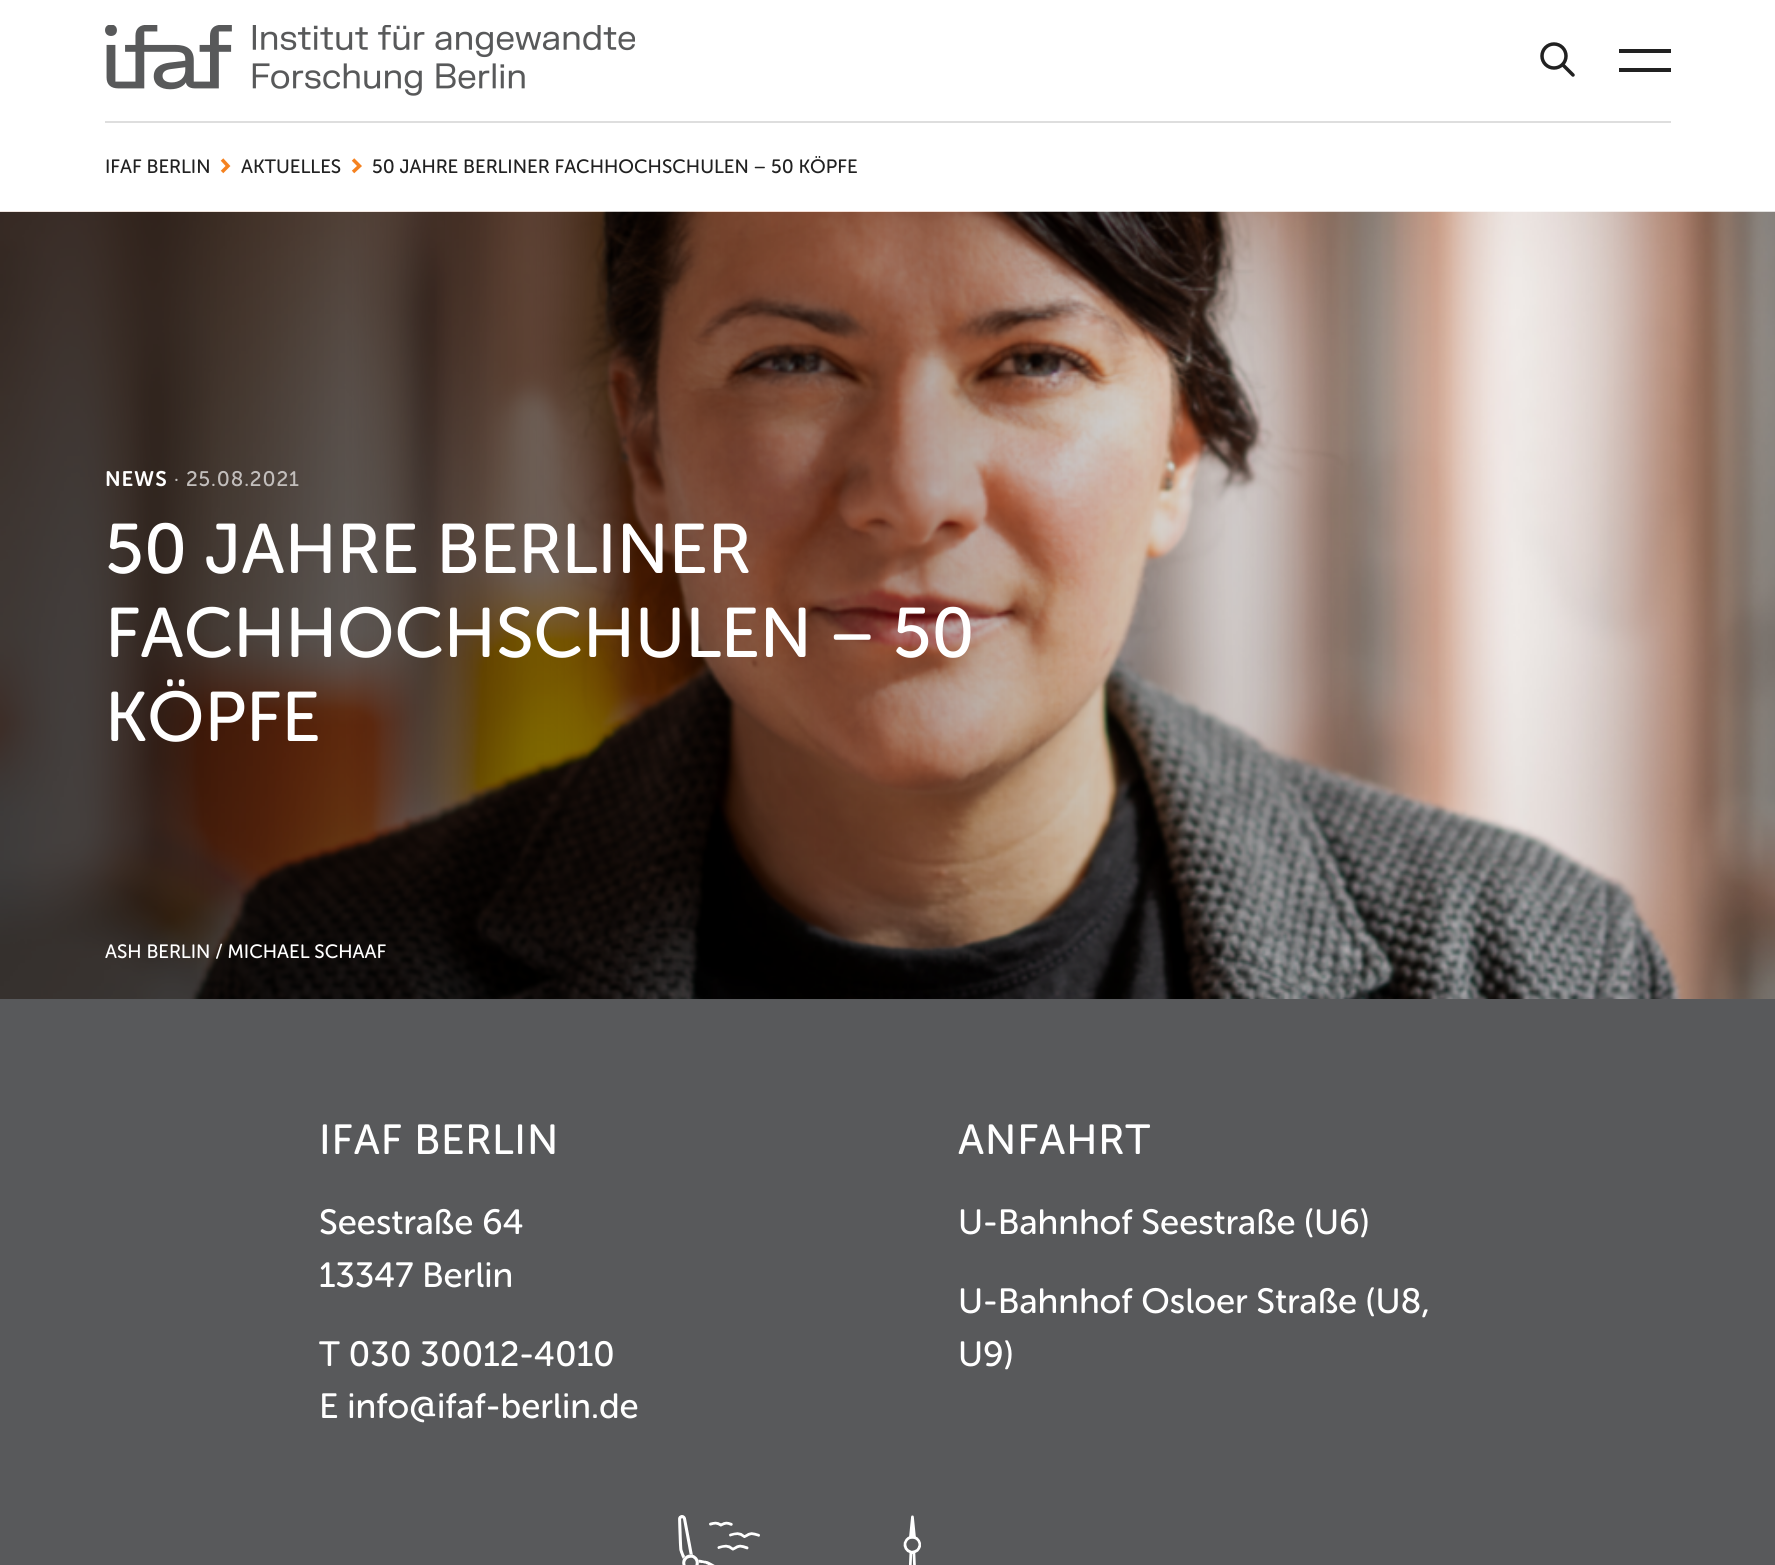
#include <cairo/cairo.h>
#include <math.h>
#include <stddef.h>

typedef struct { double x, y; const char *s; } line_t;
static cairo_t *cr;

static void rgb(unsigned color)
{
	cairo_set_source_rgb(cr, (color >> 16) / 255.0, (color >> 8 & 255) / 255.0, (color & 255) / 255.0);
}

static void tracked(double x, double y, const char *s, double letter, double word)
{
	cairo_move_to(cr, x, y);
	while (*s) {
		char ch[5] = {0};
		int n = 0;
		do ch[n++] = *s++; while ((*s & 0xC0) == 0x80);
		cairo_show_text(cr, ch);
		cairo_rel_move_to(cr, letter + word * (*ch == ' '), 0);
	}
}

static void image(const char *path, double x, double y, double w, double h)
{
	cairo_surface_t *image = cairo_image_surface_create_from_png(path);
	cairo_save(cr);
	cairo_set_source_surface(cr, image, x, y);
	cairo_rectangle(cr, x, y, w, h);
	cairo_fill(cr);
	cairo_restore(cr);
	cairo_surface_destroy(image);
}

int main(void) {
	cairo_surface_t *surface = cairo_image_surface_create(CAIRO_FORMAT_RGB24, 1775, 1565);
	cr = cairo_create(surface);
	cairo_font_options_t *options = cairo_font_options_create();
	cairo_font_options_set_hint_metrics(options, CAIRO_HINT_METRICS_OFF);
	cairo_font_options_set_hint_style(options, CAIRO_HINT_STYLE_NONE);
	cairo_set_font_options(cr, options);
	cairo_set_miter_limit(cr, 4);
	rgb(0xffffff);
	cairo_paint(cr);
	rgb(0xdedede);
	cairo_rectangle(cr, 105, 121, 1566, 2);
	cairo_fill(cr);
	image("img/1.png", 105, 25, 530, 71);
	cairo_arc(cr, 1554, 56, 12, 0, 2 * M_PI);
	rgb(0x212121);
	cairo_set_line_width(cr, 3.5);
	cairo_stroke(cr);
	cairo_new_path(cr);
	cairo_move_to(cr, 1563, 65);
	cairo_line_to(cr, 1573, 75);
	cairo_set_line_cap(cr, CAIRO_LINE_CAP_ROUND);
	cairo_set_line_join(cr, CAIRO_LINE_JOIN_ROUND);
	cairo_stroke(cr);
	cairo_rectangle(cr, 1619, 49, 52, 4);
	cairo_fill(cr);
	cairo_rectangle(cr, 1619, 68, 52, 4);
	cairo_fill(cr);
	cairo_new_path(cr);
	cairo_move_to(cr, 222, 159.5);
	cairo_line_to(cr, 228, 166);
	cairo_line_to(cr, 222, 172);
	rgb(0xf58220);
	cairo_set_line_cap(cr, CAIRO_LINE_CAP_BUTT);
	cairo_set_line_join(cr, CAIRO_LINE_JOIN_MITER);
	cairo_stroke(cr);
	cairo_new_path(cr);
	cairo_move_to(cr, 353, 159.5);
	cairo_line_to(cr, 359.5, 166);
	cairo_line_to(cr, 353, 172);
	cairo_stroke(cr);
	image("img/2.png", 0, 211, 1775, 788);
	rgb(0x58595b);
	cairo_rectangle(cr, 0, 999, 1775, 566);
	cairo_fill(cr);
	image("img/3.png", 678, 1515, 243, 50);
	cairo_select_font_face(cr, "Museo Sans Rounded", CAIRO_FONT_SLANT_NORMAL, CAIRO_FONT_WEIGHT_NORMAL);
	cairo_set_font_size(cr, 19.25);
	rgb(0x212121);
	{
		static const line_t items[] = {
			{105, 173, "IFAF BERLIN"},
			{241, 173, "AKTUELLES"},
			{372, 173, "50 JAHRE BERLINER FACHHOCHSCHULEN – 50 KÖPFE"},
		};
		for (size_t i = 0; i < sizeof items / sizeof *items; i++) {
			cairo_move_to(cr, items[i].x, items[i].y);
			cairo_show_text(cr, items[i].s);
		}
	}
	cairo_select_font_face(cr, "Museo Sans Rounded SemiBold", CAIRO_FONT_SLANT_NORMAL, CAIRO_FONT_WEIGHT_NORMAL);
	cairo_set_font_size(cr, 21);
	rgb(0xffffff);
	tracked(105, 486, "NEWS", 0.9, 0);
	cairo_select_font_face(cr, "Museo Sans Rounded", CAIRO_FONT_SLANT_NORMAL, CAIRO_FONT_WEIGHT_NORMAL);
	rgb(0xc2bebc);
	tracked(174, 486, "· 25.08.2021", 0.9, 0);
	cairo_set_font_size(cr, 70);
	rgb(0xffffff);
	{
		static const line_t items[] = {
			{105, 573, "50 JAHRE BERLINER"},
			{105, 657, "FACHHOCHSCHULEN – 50"},
			{105, 741, "KÖPFE"},
		};
		for (size_t i = 0; i < sizeof items / sizeof *items; i++) {
			cairo_move_to(cr, items[i].x, items[i].y);
			cairo_show_text(cr, items[i].s);
		}
	}
	cairo_set_font_size(cr, 19.25);
	cairo_move_to(cr, 105, 958);
	cairo_show_text(cr, "ASH BERLIN / MICHAEL SCHAAF");
	cairo_set_font_size(cr, 42);
	tracked(319, 1154, "IFAF BERLIN", 0.9, 0);
	cairo_set_font_size(cr, 35);
	{
		static const line_t items[] = {
			{319, 1234, "Seestraße 64"},
			{319, 1287, "13347 Berlin"},
			{319, 1366, "T 030 30012-4010"},
			{319, 1418, "E info@ifaf-berlin.de"},
		};
		for (size_t i = 0; i < sizeof items / sizeof *items; i++) {
			cairo_move_to(cr, items[i].x, items[i].y);
			cairo_show_text(cr, items[i].s);
		}
	}
	cairo_set_font_size(cr, 42);
	tracked(958, 1154, "ANFAHRT", 0.9, 0);
	cairo_set_font_size(cr, 35);
	{
		static const line_t items[] = {
			{958, 1234, "U-Bahnhof Seestraße (U6)"},
			{958, 1313, "U-Bahnhof Osloer Straße (U8,"},
			{958, 1366, "U9)"},
		};
		for (size_t i = 0; i < sizeof items / sizeof *items; i++) {
			cairo_move_to(cr, items[i].x, items[i].y);
			cairo_show_text(cr, items[i].s);
		}
	}
	cairo_surface_write_to_png(surface, "page.png");
	cairo_font_options_destroy(options);
	cairo_destroy(cr);
	cairo_surface_destroy(surface);
	return 0;
}
